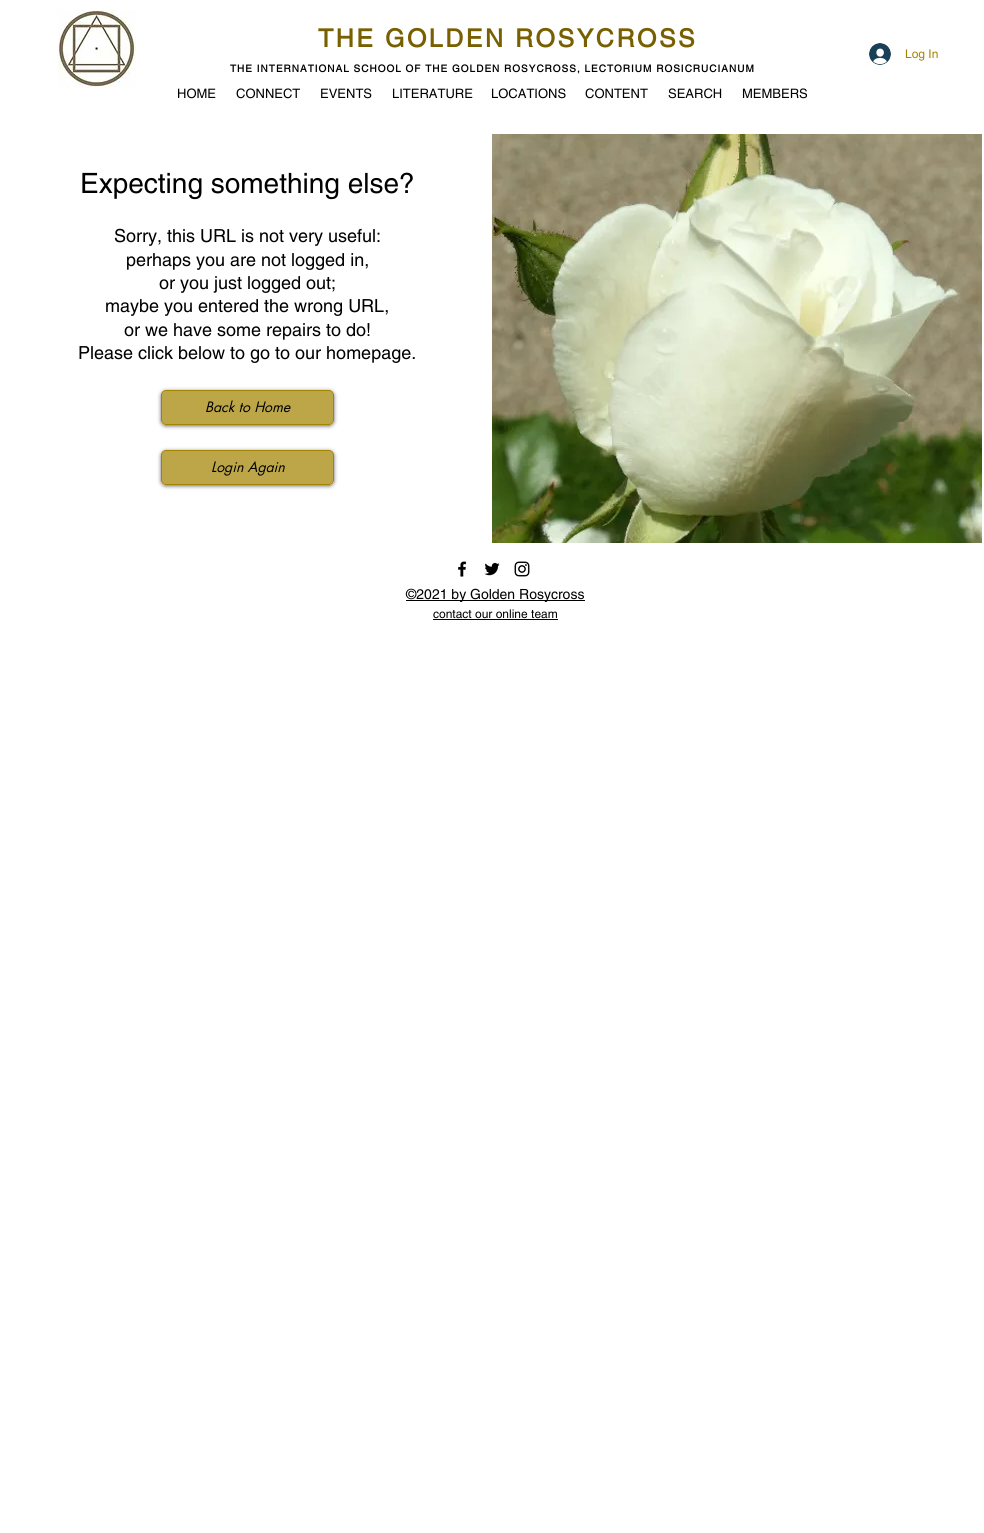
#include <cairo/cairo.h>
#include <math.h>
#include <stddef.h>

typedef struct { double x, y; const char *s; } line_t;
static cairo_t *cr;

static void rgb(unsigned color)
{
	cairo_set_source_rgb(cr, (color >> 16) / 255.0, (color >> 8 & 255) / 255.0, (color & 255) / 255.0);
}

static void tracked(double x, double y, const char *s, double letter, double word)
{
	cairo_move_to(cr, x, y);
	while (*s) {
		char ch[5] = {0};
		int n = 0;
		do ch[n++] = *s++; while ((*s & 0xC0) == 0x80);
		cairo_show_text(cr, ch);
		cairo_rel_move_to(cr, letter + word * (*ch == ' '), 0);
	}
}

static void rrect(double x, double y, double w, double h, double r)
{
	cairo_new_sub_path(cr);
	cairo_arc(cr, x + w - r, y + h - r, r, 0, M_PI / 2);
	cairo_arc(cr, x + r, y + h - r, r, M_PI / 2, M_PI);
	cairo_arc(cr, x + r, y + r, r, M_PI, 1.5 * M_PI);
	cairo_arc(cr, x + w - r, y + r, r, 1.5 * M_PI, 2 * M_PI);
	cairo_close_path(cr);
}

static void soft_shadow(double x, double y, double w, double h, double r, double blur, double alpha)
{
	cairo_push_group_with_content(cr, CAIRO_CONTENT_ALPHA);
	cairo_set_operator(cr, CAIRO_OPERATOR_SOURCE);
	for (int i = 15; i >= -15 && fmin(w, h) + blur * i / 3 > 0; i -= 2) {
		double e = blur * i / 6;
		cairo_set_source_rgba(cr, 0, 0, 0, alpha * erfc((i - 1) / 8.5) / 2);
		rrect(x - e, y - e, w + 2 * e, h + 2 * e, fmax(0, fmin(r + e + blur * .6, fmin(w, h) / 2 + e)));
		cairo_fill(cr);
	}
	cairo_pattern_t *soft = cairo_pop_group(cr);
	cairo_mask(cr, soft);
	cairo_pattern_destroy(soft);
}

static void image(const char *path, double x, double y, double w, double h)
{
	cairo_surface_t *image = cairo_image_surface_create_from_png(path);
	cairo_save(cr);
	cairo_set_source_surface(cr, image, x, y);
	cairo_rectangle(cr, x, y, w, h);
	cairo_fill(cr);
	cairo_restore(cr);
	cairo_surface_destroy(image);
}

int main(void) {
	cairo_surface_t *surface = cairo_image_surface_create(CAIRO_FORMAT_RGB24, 984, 1533);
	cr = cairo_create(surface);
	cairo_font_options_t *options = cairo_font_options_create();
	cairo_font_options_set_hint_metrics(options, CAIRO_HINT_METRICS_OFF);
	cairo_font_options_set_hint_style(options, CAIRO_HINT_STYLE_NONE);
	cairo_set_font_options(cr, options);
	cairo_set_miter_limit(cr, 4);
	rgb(0xffffff);
	cairo_paint(cr);
	image("img/1.png", 58, 10, 78, 78);
	image("img/2.png", 869, 43, 22, 22);
	cairo_save(cr);
	cairo_set_fill_rule(cr, CAIRO_FILL_RULE_EVEN_ODD);
	cairo_new_path(cr);
	cairo_move_to(cr, 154, 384);
	cairo_line_to(cr, 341, 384);
	cairo_line_to(cr, 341, 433);
	cairo_line_to(cr, 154, 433);
	cairo_close_path(cr);
	cairo_move_to(cr, 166, 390);
	cairo_line_to(cr, 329, 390);
	cairo_curve_to(cr, 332, 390, 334, 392, 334, 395);
	cairo_line_to(cr, 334, 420);
	cairo_curve_to(cr, 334, 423, 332, 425, 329, 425);
	cairo_line_to(cr, 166, 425);
	cairo_curve_to(cr, 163, 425, 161, 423, 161, 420);
	cairo_line_to(cr, 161, 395);
	cairo_curve_to(cr, 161, 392, 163, 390, 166, 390);
	cairo_close_path(cr);
	cairo_clip(cr);
	rgb(0x000000);
	soft_shadow(161, 391, 173, 35, 5, 2, 0.6);
	cairo_restore(cr);
	cairo_set_source_rgba(cr, 0.639, 0.518, 0.008, 0.72);
	rrect(161.5, 390.5, 172, 34, 4.5);
	cairo_fill_preserve(cr);
	rgb(0xa38402);
	cairo_set_line_width(cr, 1);
	cairo_stroke(cr);
	cairo_save(cr);
	cairo_set_fill_rule(cr, CAIRO_FILL_RULE_EVEN_ODD);
	cairo_new_path(cr);
	cairo_move_to(cr, 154, 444);
	cairo_line_to(cr, 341, 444);
	cairo_line_to(cr, 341, 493);
	cairo_line_to(cr, 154, 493);
	cairo_close_path(cr);
	cairo_move_to(cr, 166, 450);
	cairo_line_to(cr, 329, 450);
	cairo_curve_to(cr, 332, 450, 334, 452, 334, 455);
	cairo_line_to(cr, 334, 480);
	cairo_curve_to(cr, 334, 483, 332, 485, 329, 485);
	cairo_line_to(cr, 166, 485);
	cairo_curve_to(cr, 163, 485, 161, 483, 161, 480);
	cairo_line_to(cr, 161, 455);
	cairo_curve_to(cr, 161, 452, 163, 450, 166, 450);
	cairo_close_path(cr);
	cairo_clip(cr);
	rgb(0x000000);
	soft_shadow(161, 451, 173, 35, 5, 2, 0.6);
	cairo_restore(cr);
	cairo_set_source_rgba(cr, 0.639, 0.518, 0.008, 0.72);
	rrect(161.5, 450.5, 172, 34, 4.5);
	cairo_fill_preserve(cr);
	rgb(0xa38402);
	cairo_stroke(cr);
	image("img/3.png", 492, 134, 490, 409);
	image("img/4.png", 458, 561, 9, 16);
	image("img/5.png", 484, 562, 16, 14);
	image("img/6.png", 514, 561, 16, 16);
	rgb(0x000000);
	cairo_rectangle(cr, 406, 600, 179, 1);
	cairo_fill(cr);
	cairo_rectangle(cr, 433, 619, 125, 1);
	cairo_fill(cr);
	cairo_select_font_face(cr, "helvetica", CAIRO_FONT_SLANT_NORMAL, CAIRO_FONT_WEIGHT_BOLD);
	cairo_set_font_size(cr, 25);
	rgb(0x786001);
	tracked(318, 47, "THE GOLDEN ROSYCROSS", 2.5, 0);
	cairo_select_font_face(cr, "helvetica", CAIRO_FONT_SLANT_NORMAL, CAIRO_FONT_WEIGHT_NORMAL);
	cairo_set_font_size(cr, 12);
	rgb(0xa38402);
	cairo_move_to(cr, 905, 58);
	cairo_show_text(cr, "Log In");
	cairo_select_font_face(cr, "helvetica", CAIRO_FONT_SLANT_NORMAL, CAIRO_FONT_WEIGHT_BOLD);
	cairo_set_font_size(cr, 10);
	rgb(0x000000);
	tracked(230, 72, "THE INTERNATIONAL SCHOOL OF THE GOLDEN ROSYCROSS, LECTORIUM ROSICRUCIANUM", 1, 0);
	cairo_select_font_face(cr, "helvetica", CAIRO_FONT_SLANT_NORMAL, CAIRO_FONT_WEIGHT_NORMAL);
	cairo_set_font_size(cr, 13);
	{
		static const line_t items[] = {
			{177, 98, "HOME"},
			{236, 98, "CONNECT"},
			{320, 98, "EVENTS"},
			{392, 98, "LITERATURE"},
			{491, 98, "LOCATIONS"},
			{585, 98, "CONTENT"},
			{668, 98, "SEARCH"},
			{742, 98, "MEMBERS"},
		};
		for (size_t i = 0; i < sizeof items / sizeof *items; i++) {
			cairo_move_to(cr, items[i].x, items[i].y);
			cairo_show_text(cr, items[i].s);
		}
	}
	cairo_set_font_size(cr, 28);
	cairo_move_to(cr, 80, 193);
	cairo_show_text(cr, "Expecting something else?");
	cairo_set_font_size(cr, 18);
	{
		static const line_t items[] = {
			{114, 242, "Sorry, this URL is not very useful:"},
			{126, 266, "perhaps you are not logged in,"},
			{159, 289, "or you just logged out;"},
			{105, 312, "maybe you entered the wrong URL,"},
			{124, 336, "or we have some repairs to do!"},
			{78, 359, "Please click below to go to our homepage."},
		};
		for (size_t i = 0; i < sizeof items / sizeof *items; i++) {
			cairo_move_to(cr, items[i].x, items[i].y);
			cairo_show_text(cr, items[i].s);
		}
	}
	cairo_select_font_face(cr, "futura", CAIRO_FONT_SLANT_ITALIC, CAIRO_FONT_WEIGHT_NORMAL);
	cairo_set_font_size(cr, 14);
	cairo_move_to(cr, 205, 412);
	cairo_show_text(cr, "Back to Home");
	cairo_move_to(cr, 211, 472);
	cairo_show_text(cr, "Login Again");
	cairo_select_font_face(cr, "helvetica", CAIRO_FONT_SLANT_NORMAL, CAIRO_FONT_WEIGHT_NORMAL);
	cairo_move_to(cr, 406, 599);
	cairo_show_text(cr, "©2021 by Golden Rosycross");
	cairo_set_font_size(cr, 12);
	cairo_move_to(cr, 433, 618);
	cairo_show_text(cr, "contact our online team");
	cairo_surface_write_to_png(surface, "page.png");
	cairo_font_options_destroy(options);
	cairo_destroy(cr);
	cairo_surface_destroy(surface);
	return 0;
}
